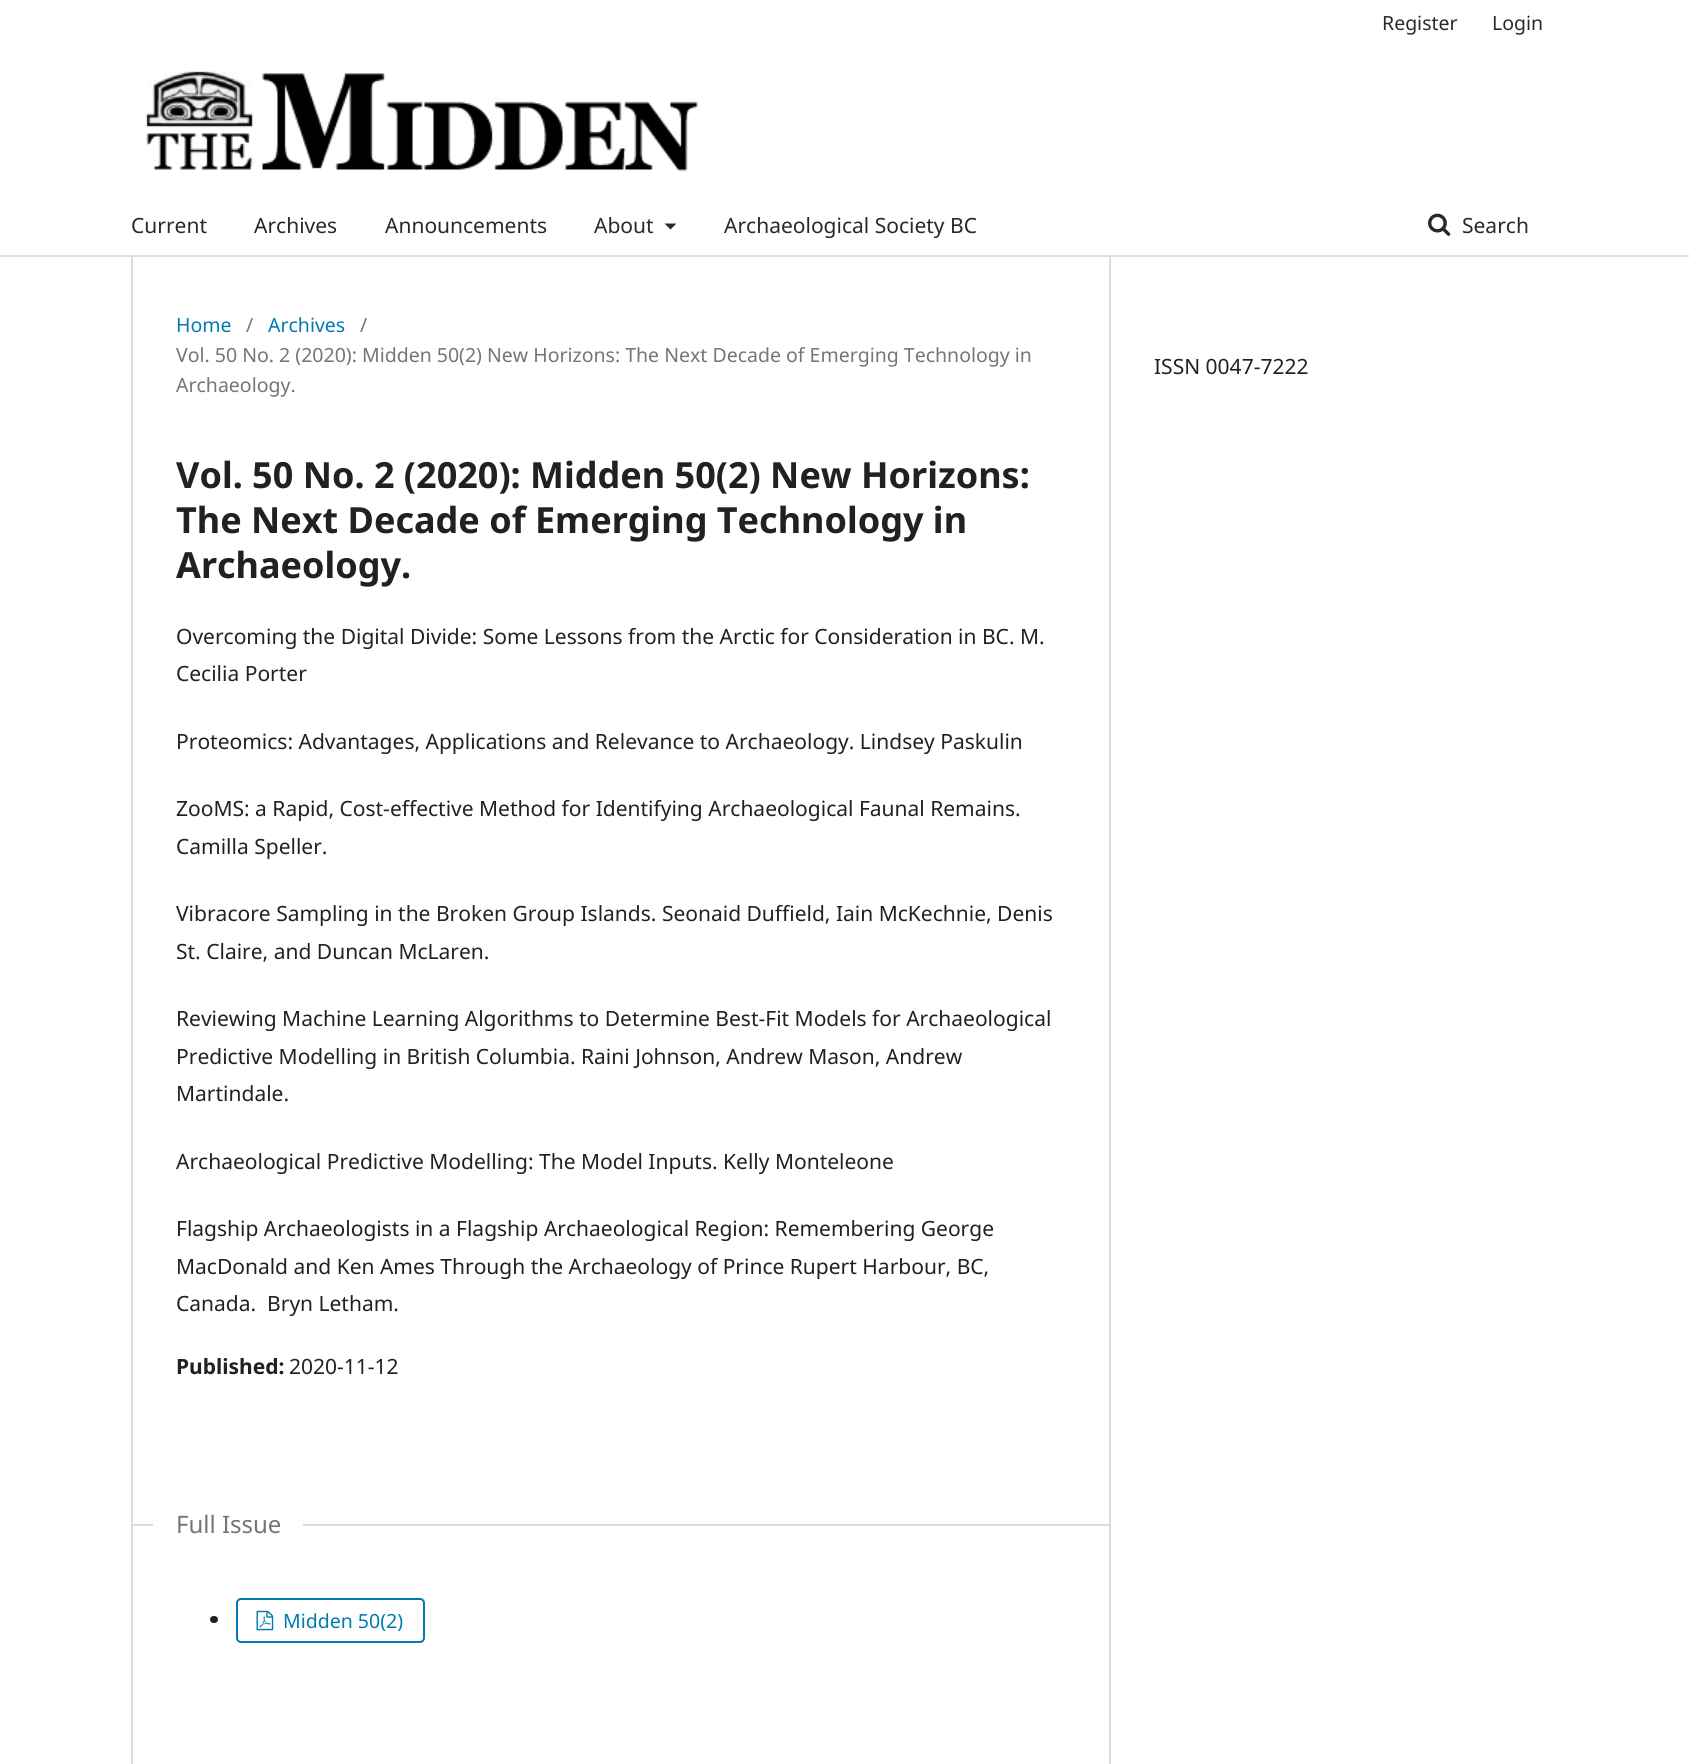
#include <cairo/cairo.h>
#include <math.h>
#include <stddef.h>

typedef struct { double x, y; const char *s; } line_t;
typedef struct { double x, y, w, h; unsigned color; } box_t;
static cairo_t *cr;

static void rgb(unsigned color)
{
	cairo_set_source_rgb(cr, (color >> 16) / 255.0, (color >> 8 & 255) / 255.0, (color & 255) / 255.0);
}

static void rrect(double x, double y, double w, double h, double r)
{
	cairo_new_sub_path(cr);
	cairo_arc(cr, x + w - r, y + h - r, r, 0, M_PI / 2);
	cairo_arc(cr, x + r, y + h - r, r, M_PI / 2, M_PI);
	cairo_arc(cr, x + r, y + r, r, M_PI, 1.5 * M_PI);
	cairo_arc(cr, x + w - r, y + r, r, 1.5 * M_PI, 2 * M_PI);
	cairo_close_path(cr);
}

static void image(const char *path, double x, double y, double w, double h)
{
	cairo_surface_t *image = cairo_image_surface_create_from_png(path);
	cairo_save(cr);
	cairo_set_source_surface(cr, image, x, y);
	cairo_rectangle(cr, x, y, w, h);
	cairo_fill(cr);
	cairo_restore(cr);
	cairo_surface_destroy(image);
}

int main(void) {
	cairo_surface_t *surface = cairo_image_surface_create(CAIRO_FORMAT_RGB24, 1689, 1764);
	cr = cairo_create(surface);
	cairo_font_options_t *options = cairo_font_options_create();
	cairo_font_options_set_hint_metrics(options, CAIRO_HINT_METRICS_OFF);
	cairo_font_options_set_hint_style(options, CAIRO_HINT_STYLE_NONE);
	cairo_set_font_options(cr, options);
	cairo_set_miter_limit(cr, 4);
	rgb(0xffffff);
	cairo_paint(cr);
	rgb(0xdddddd);
	cairo_rectangle(cr, 0, 255, 1689, 2);
	cairo_fill(cr);
	image("img/1.png", 146, 71, 552, 101);
	rgb(0x292929);
	cairo_new_path(cr);
	cairo_move_to(cr, 664.5, 223.5);
	cairo_line_to(cr, 676.5, 223.5);
	cairo_line_to(cr, 670.5, 229.5);
	cairo_close_path(cr);
	cairo_fill(cr);
	image("img/2.png", 1428, 213, 23, 23);
	{
		static const box_t items[] = {
			{131, 257, 2, 1507, 0xdddddd},
			{131, 1524, 978, 2, 0xdddddd},
			{153, 1524, 150, 2, 0xffffff},
		};
		for (size_t i = 0; i < sizeof items / sizeof *items; i++) {
			rgb(items[i].color);
			cairo_rectangle(cr, items[i].x, items[i].y, items[i].w, items[i].h);
			cairo_fill(cr);
		}
	}
	rgb(0x212121);
	rrect(210, 1616, 8, 7, 3.5);
	cairo_fill(cr);
	rrect(237, 1599, 187, 43, 4);
	rgb(0x007ab2);
	cairo_stroke(cr);
	image("img/3.png", 256, 1610, 18, 21);
	rgb(0xdddddd);
	cairo_rectangle(cr, 1109, 257, 2, 1507);
	cairo_fill(cr);
	cairo_select_font_face(cr, "Noto Sans", CAIRO_FONT_SLANT_NORMAL, CAIRO_FONT_WEIGHT_NORMAL);
	cairo_set_font_size(cr, 19.5);
	rgb(0x292929);
	cairo_move_to(cr, 1382, 30);
	cairo_show_text(cr, "Register");
	cairo_move_to(cr, 1492, 30);
	cairo_show_text(cr, "Login");
	cairo_set_font_size(cr, 21);
	{
		static const line_t items[] = {
			{131, 233, "Current"},
			{254, 233, "Archives"},
			{385, 233, "Announcements"},
			{594, 233, "About"},
			{724, 233, "Archaeological Society BC"},
			{1462, 233, "Search"},
		};
		for (size_t i = 0; i < sizeof items / sizeof *items; i++) {
			cairo_move_to(cr, items[i].x, items[i].y);
			cairo_show_text(cr, items[i].s);
		}
	}
	cairo_set_font_size(cr, 19.5);
	rgb(0x007ab2);
	cairo_move_to(cr, 176, 332);
	cairo_show_text(cr, "Home");
	rgb(0x757575);
	cairo_move_to(cr, 246, 332);
	cairo_show_text(cr, "/");
	rgb(0x007ab2);
	cairo_move_to(cr, 268, 332);
	cairo_show_text(cr, "Archives");
	rgb(0x757575);
	{
		static const line_t items[] = {
			{360, 332, "/"},
			{176, 362, "Vol. 50 No. 2 (2020): Midden 50(2) New Horizons: The Next Decade of Emerging Technology in"},
			{176, 392, "Archaeology."},
		};
		for (size_t i = 0; i < sizeof items / sizeof *items; i++) {
			cairo_move_to(cr, items[i].x, items[i].y);
			cairo_show_text(cr, items[i].s);
		}
	}
	cairo_select_font_face(cr, "Noto Sans", CAIRO_FONT_SLANT_NORMAL, CAIRO_FONT_WEIGHT_BOLD);
	cairo_set_font_size(cr, 36);
	rgb(0x212121);
	{
		static const line_t items[] = {
			{176, 488, "Vol. 50 No. 2 (2020): Midden 50(2) New Horizons:"},
			{176, 533, "The Next Decade of Emerging Technology in"},
			{176, 578, "Archaeology."},
		};
		for (size_t i = 0; i < sizeof items / sizeof *items; i++) {
			cairo_move_to(cr, items[i].x, items[i].y);
			cairo_show_text(cr, items[i].s);
		}
	}
	cairo_select_font_face(cr, "Noto Sans", CAIRO_FONT_SLANT_NORMAL, CAIRO_FONT_WEIGHT_NORMAL);
	cairo_set_font_size(cr, 21);
	{
		static const line_t items[] = {
			{176, 644, "Overcoming the Digital Divide: Some Lessons from the Arctic for Consideration in BC. M."},
			{176, 681, "Cecilia Porter"},
			{176, 749, "Proteomics: Advantages, Applications and Relevance to Archaeology. Lindsey Paskulin"},
			{176, 816, "ZooMS: a Rapid, Cost-effective Method for Identifying Archaeological Faunal Remains."},
			{176, 854, "Camilla Speller."},
			{176, 921, "Vibracore Sampling in the Broken Group Islands. Seonaid Duffield, Iain McKechnie, Denis"},
			{176, 959, "St. Claire, and Duncan McLaren."},
			{176, 1026, "Reviewing Machine Learning Algorithms to Determine Best-Fit Models for Archaeological"},
			{176, 1064, "Predictive Modelling in British Columbia. Raini Johnson, Andrew Mason, Andrew"},
			{176, 1101, "Martindale."},
			{176, 1169, "Archaeological Predictive Modelling: The Model Inputs. Kelly Monteleone"},
			{176, 1236, "Flagship Archaeologists in a Flagship Archaeological Region: Remembering George"},
			{176, 1274, "MacDonald and Ken Ames Through the Archaeology of Prince Rupert Harbour, BC,"},
			{176, 1311, "Canada.  Bryn Letham."},
		};
		for (size_t i = 0; i < sizeof items / sizeof *items; i++) {
			cairo_move_to(cr, items[i].x, items[i].y);
			cairo_show_text(cr, items[i].s);
		}
	}
	cairo_select_font_face(cr, "Noto Sans", CAIRO_FONT_SLANT_NORMAL, CAIRO_FONT_WEIGHT_BOLD);
	cairo_move_to(cr, 176, 1374);
	cairo_show_text(cr, "Published:");
	cairo_select_font_face(cr, "Noto Sans", CAIRO_FONT_SLANT_NORMAL, CAIRO_FONT_WEIGHT_NORMAL);
	cairo_move_to(cr, 289, 1374);
	cairo_show_text(cr, "2020-11-12");
	cairo_set_font_size(cr, 24);
	rgb(0x757575);
	cairo_move_to(cr, 176, 1533);
	cairo_show_text(cr, "Full Issue");
	cairo_set_font_size(cr, 19.5);
	rgb(0x007ab2);
	cairo_move_to(cr, 283, 1628);
	cairo_show_text(cr, "Midden 50(2)");
	cairo_set_font_size(cr, 21);
	rgb(0x212121);
	cairo_move_to(cr, 1154, 374);
	cairo_show_text(cr, "ISSN 0047-7222");
	cairo_surface_write_to_png(surface, "page.png");
	cairo_font_options_destroy(options);
	cairo_destroy(cr);
	cairo_surface_destroy(surface);
	return 0;
}
